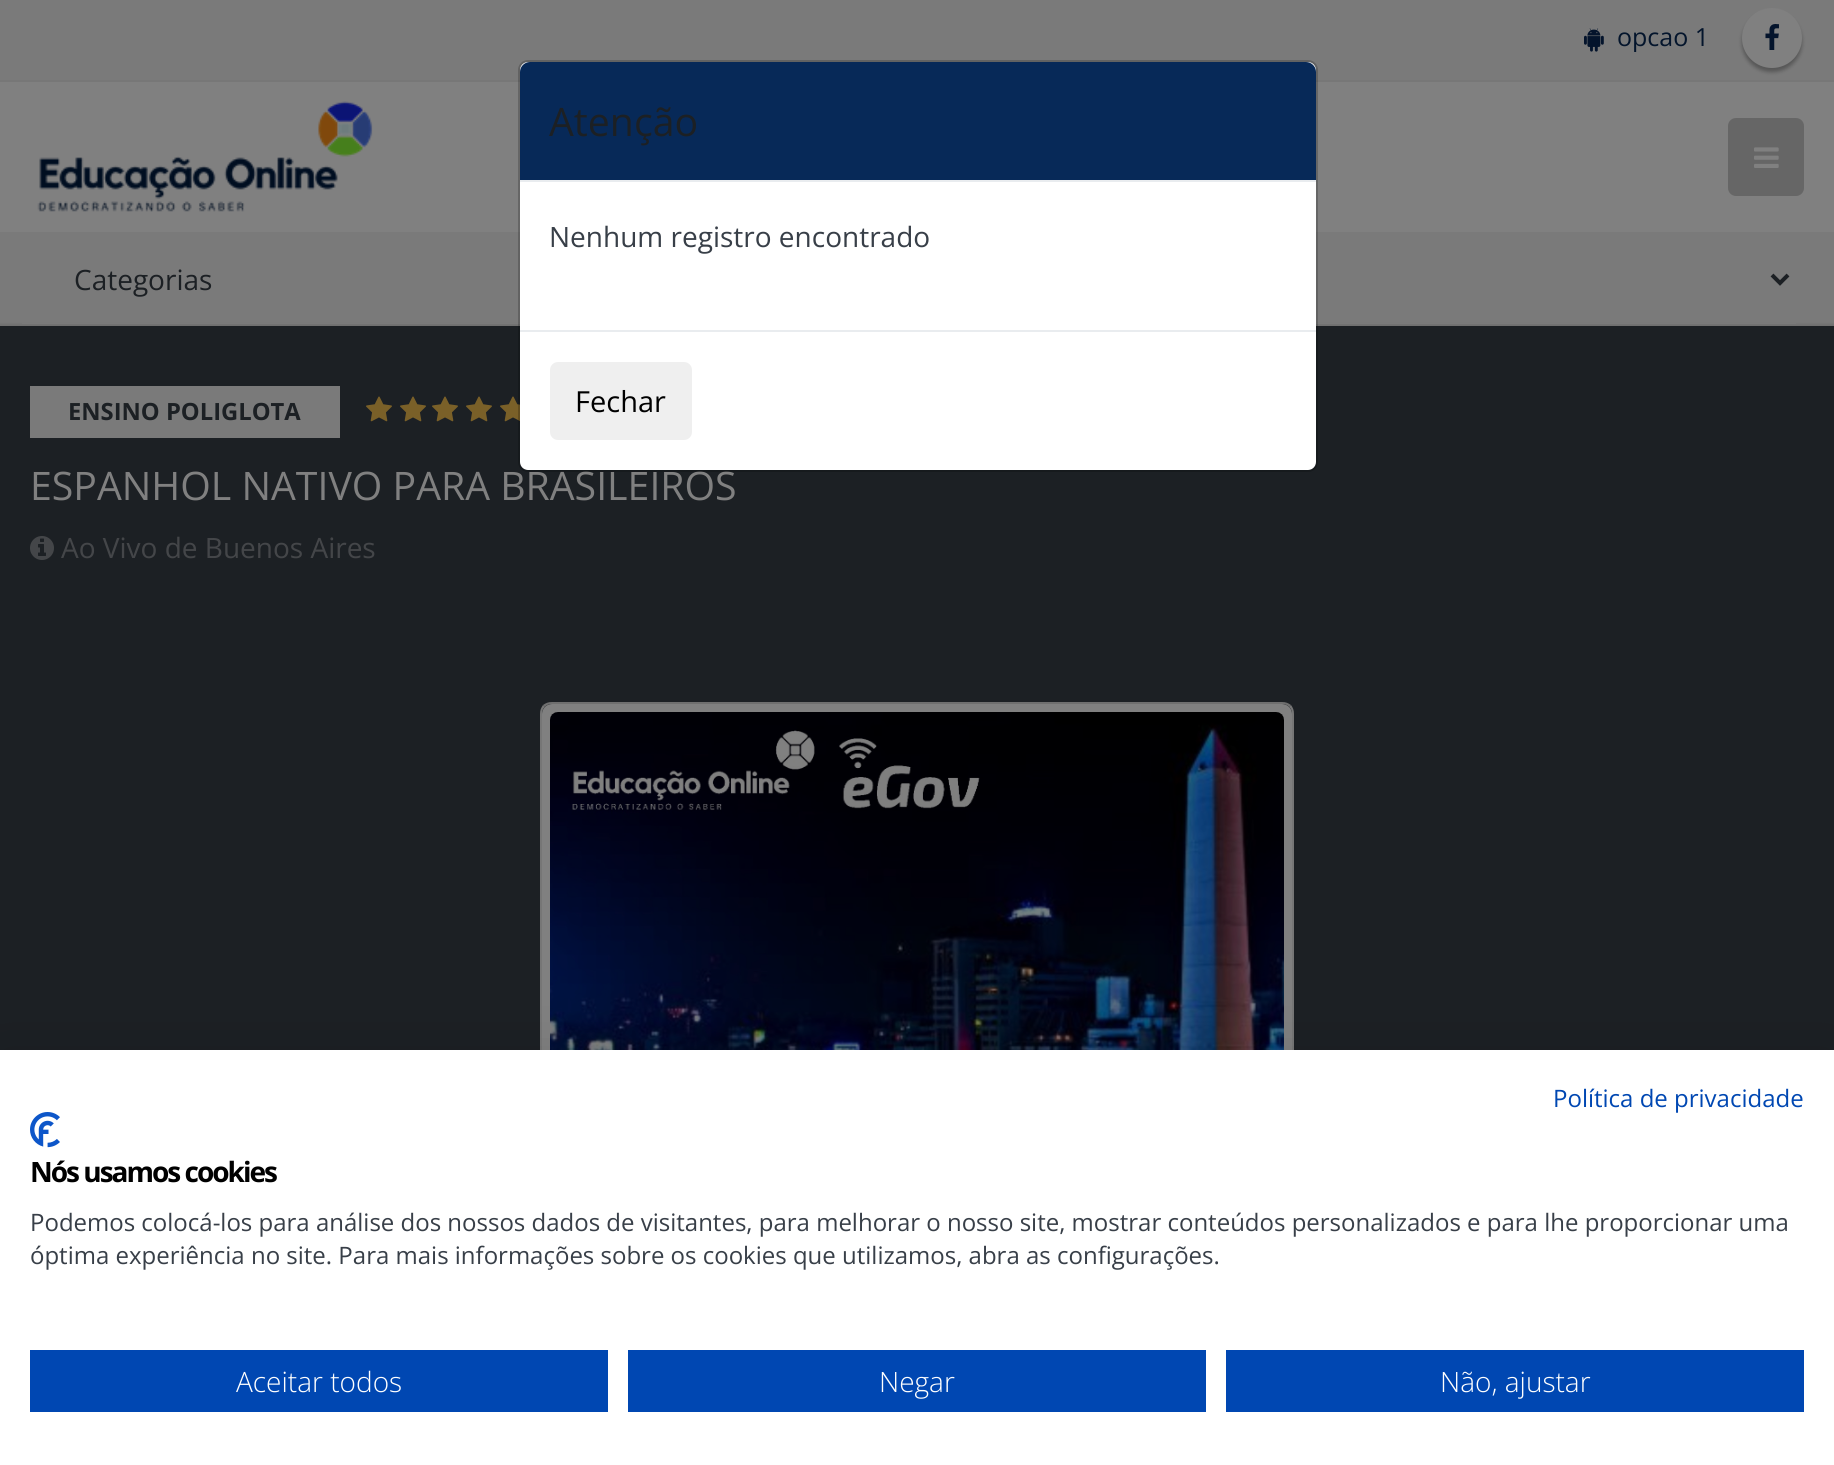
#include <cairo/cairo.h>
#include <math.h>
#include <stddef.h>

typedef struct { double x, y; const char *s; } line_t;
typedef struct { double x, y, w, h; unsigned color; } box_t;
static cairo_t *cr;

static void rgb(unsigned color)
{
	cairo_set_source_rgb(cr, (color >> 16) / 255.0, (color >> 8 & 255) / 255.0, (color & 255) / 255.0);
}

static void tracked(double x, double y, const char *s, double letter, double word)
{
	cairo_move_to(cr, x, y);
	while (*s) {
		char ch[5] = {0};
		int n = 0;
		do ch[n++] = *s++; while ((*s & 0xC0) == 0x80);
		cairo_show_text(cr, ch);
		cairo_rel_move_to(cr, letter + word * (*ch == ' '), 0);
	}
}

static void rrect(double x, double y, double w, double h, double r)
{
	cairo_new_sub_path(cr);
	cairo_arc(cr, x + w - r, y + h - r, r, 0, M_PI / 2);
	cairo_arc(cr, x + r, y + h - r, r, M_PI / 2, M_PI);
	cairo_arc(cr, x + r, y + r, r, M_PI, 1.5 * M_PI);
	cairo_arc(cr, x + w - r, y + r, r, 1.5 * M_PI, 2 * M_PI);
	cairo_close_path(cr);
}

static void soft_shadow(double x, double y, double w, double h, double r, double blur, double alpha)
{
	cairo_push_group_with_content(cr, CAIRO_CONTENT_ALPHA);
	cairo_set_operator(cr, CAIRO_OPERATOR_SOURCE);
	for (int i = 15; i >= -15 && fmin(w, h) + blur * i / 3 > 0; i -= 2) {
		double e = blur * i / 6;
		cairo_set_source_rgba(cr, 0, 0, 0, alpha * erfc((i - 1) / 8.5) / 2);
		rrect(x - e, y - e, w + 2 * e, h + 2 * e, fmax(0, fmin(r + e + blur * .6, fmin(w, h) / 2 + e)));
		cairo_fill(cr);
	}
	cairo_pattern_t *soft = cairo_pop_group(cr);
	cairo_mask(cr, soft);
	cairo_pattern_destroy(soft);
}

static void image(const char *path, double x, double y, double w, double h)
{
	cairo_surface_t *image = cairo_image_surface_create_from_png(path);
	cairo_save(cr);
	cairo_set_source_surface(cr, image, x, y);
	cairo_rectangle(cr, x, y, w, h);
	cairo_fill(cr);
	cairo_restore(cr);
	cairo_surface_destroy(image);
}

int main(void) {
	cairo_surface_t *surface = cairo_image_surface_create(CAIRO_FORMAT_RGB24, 1834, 1465);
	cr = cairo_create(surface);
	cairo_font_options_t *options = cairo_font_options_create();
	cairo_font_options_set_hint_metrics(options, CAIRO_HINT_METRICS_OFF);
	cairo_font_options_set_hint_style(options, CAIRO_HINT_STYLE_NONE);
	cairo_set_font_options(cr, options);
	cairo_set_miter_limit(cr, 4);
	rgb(0x808080);
	cairo_paint(cr);
	rgb(0x7a7a7a);
	cairo_rectangle(cr, 0, 0, 1834, 80);
	cairo_fill(cr);
	rgb(0x777777);
	cairo_rectangle(cr, 0, 80, 1834, 2);
	cairo_fill(cr);
	image("img/1.png", 1584, 28, 20, 24);
	rgb(0x000000);
	soft_shadow(1742, 12, 60, 60, 30, 2, 0.3);
	rgb(0x808080);
	cairo_arc(cr, 1772, 38, 30, 0, 2 * M_PI);
	cairo_fill(cr);
	image("img/2.png", 1765, 24, 14, 26);
	image("img/3.png", 37, 101, 336, 111);
	rgb(0x666666);
	rrect(1728, 118, 76, 78, 8);
	cairo_fill(cr);
	image("img/4.png", 1754, 147, 25, 21);
	rgb(0x7a7a7a);
	cairo_rectangle(cr, 0, 232, 1834, 94);
	cairo_fill(cr);
	rgb(0x0a0c0e);
	soft_shadow(-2, 324, 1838, 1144, 0, 1, 0.1);
	rgb(0x7a7a7a);
	cairo_rectangle(cr, 22, 323, 1774, 1);
	cairo_fill(cr);
	cairo_new_path(cr);
	cairo_move_to(cr, 1772, 275);
	cairo_line_to(cr, 1780, 283);
	cairo_line_to(cr, 1788, 275);
	rgb(0x1c2024);
	cairo_set_line_width(cr, 4);
	cairo_stroke(cr);
	cairo_rectangle(cr, 0, 326, 1834, 724);
	cairo_fill(cr);
	rgb(0x7a7a7a);
	cairo_rectangle(cr, 30, 386, 310, 52);
	cairo_fill(cr);
	image("img/5.png", 366, 396, 26, 26);
	image("img/5.png", 400, 396, 26, 26);
	image("img/5.png", 432, 396, 26, 26);
	image("img/5.png", 466, 396, 26, 26);
	image("img/6.png", 500, 396, 20, 26);
	image("img/7.png", 30, 536, 24, 24);
	rgb(0x808080);
	cairo_new_path(cr);
	cairo_move_to(cr, 552, 704);
	cairo_line_to(cr, 1282, 704);
	cairo_curve_to(cr, 1287.5, 704, 1292, 708.5, 1292, 714);
	cairo_line_to(cr, 1292, 1460);
	cairo_line_to(cr, 542, 1460);
	cairo_line_to(cr, 542, 714);
	cairo_curve_to(cr, 542, 708.5, 546.5, 704, 552, 704);
	cairo_close_path(cr);
	cairo_fill(cr);
	rgb(0x6f6f6f);
	cairo_new_path(cr);
	cairo_move_to(cr, 552, 702);
	cairo_curve_to(cr, 548, 702, 546, 703, 543, 705);
	cairo_line_to(cr, 545, 707);
	cairo_curve_to(cr, 546, 705, 549, 704, 552, 704);
	cairo_line_to(cr, 1282, 704);
	cairo_curve_to(cr, 1285, 704, 1288, 705, 1289, 707);
	cairo_line_to(cr, 1291, 705);
	cairo_curve_to(cr, 1288, 703, 1286, 702, 1282, 702);
	cairo_close_path(cr);
	cairo_fill(cr);
	rgb(0x767676);
	cairo_new_path(cr);
	cairo_move_to(cr, 1294, 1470);
	cairo_line_to(cr, 1294, 714);
	cairo_curve_to(cr, 1294, 710, 1293, 708, 1291, 705);
	cairo_line_to(cr, 1289, 707);
	cairo_curve_to(cr, 1291, 708, 1292, 711, 1292, 714);
	cairo_line_to(cr, 1292, 1460);
	cairo_close_path(cr);
	cairo_fill(cr);
	cairo_new_path(cr);
	cairo_move_to(cr, 540, 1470);
	cairo_line_to(cr, 542, 1460);
	cairo_line_to(cr, 542, 714);
	cairo_curve_to(cr, 542, 711, 543, 708, 545, 707);
	cairo_line_to(cr, 543, 705);
	cairo_curve_to(cr, 541, 708, 540, 710, 540, 714);
	cairo_close_path(cr);
	cairo_fill(cr);
	image("img/8.png", 550, 712, 734, 338);
	rgb(0xffffff);
	rrect(520, 62, 796, 408, 8);
	cairo_fill(cr);
	rgb(0x000000);
	soft_shadow(0, 1050, 1834, 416, 0, 24, 0.1);
	rgb(0xffffff);
	cairo_rectangle(cr, 0, 1050, 1834, 415);
	cairo_fill(cr);
	image("img/9.png", 30, 1112, 30, 36);
	{
		static const box_t items[] = {
			{30, 1350, 578, 62, 0x0047b2},
			{628, 1350, 578, 62, 0x0047b2},
			{1226, 1350, 578, 62, 0x0047b2},
		};
		for (size_t i = 0; i < sizeof items / sizeof *items; i++) {
			rgb(items[i].color);
			cairo_rectangle(cr, items[i].x, items[i].y, items[i].w, items[i].h);
			cairo_fill(cr);
		}
	}
	cairo_select_font_face(cr, "Open Sans", CAIRO_FONT_SLANT_NORMAL, CAIRO_FONT_WEIGHT_NORMAL);
	cairo_set_font_size(cr, 25);
	rgb(0x04152c);
	cairo_move_to(cr, 1617, 46);
	cairo_show_text(cr, "opcao 1");
	cairo_set_font_size(cr, 28);
	rgb(0x1c2024);
	cairo_move_to(cr, 74, 290);
	cairo_show_text(cr, "Categorias");
	cairo_select_font_face(cr, "Open Sans", CAIRO_FONT_SLANT_NORMAL, CAIRO_FONT_WEIGHT_BOLD);
	cairo_set_font_size(cr, 23.75);
	cairo_move_to(cr, 68, 420);
	cairo_show_text(cr, "ENSINO POLIGLOTA");
	cairo_select_font_face(cr, "Open Sans", CAIRO_FONT_SLANT_NORMAL, CAIRO_FONT_WEIGHT_NORMAL);
	cairo_set_font_size(cr, 39.25);
	rgb(0x808080);
	cairo_move_to(cr, 30, 500);
	cairo_show_text(cr, "ESPANHOL NATIVO PARA BRASILEIROS");
	cairo_set_font_size(cr, 28);
	rgb(0x444649);
	cairo_move_to(cr, 61, 558);
	cairo_show_text(cr, "Ao Vivo de Buenos Aires");
	rrect(519, 61, 798, 410, 9);
	cairo_set_source_rgba(cr, 0, 0, 0, 0.2);
	cairo_set_line_width(cr, 2);
	cairo_stroke(cr);
	rgb(0x072958);
	cairo_new_path(cr);
	cairo_move_to(cr, 530, 62);
	cairo_line_to(cr, 1306, 62);
	cairo_curve_to(cr, 1311.5, 62, 1316, 66.5, 1316, 72);
	cairo_line_to(cr, 1316, 182);
	cairo_line_to(cr, 520, 182);
	cairo_line_to(cr, 520, 72);
	cairo_curve_to(cr, 520, 66.5, 524.5, 62, 530, 62);
	cairo_close_path(cr);
	cairo_fill(cr);
	rgb(0xe9ecef);
	cairo_rectangle(cr, 520, 180, 796, 2);
	cairo_fill(cr);
	cairo_set_font_size(cr, 39.25);
	rgb(0x1c2024);
	cairo_move_to(cr, 549, 136);
	cairo_show_text(cr, "Atenção");
	cairo_set_font_size(cr, 28);
	rgb(0x383f48);
	cairo_move_to(cr, 549, 247);
	cairo_show_text(cr, "Nenhum registro encontrado");
	rgb(0xe9ecef);
	cairo_rectangle(cr, 520, 330, 796, 2);
	cairo_fill(cr);
	rgb(0xefefef);
	rrect(550, 362, 142, 78, 8);
	cairo_fill(cr);
	cairo_set_font_size(cr, 29);
	rgb(0x000000);
	cairo_move_to(cr, 575, 412);
	cairo_show_text(cr, "Fechar");
	cairo_set_font_size(cr, 24);
	rgb(0x0047b2);
	cairo_move_to(cr, 1553, 1107);
	cairo_show_text(cr, "Política de privacidade");
	cairo_select_font_face(cr, "Open Sans", CAIRO_FONT_SLANT_NORMAL, CAIRO_FONT_WEIGHT_BOLD);
	cairo_set_font_size(cr, 28);
	rgb(0x000000);
	tracked(30, 1182, "Nós usamos cookies", -2, 0);
	cairo_select_font_face(cr, "Open Sans", CAIRO_FONT_SLANT_NORMAL, CAIRO_FONT_WEIGHT_NORMAL);
	cairo_set_font_size(cr, 24);
	rgb(0x383f48);
	cairo_move_to(cr, 30, 1231);
	cairo_show_text(cr, "Podemos colocá-los para análise dos nossos dados de visitantes, para melhorar o nosso site, mostrar conteúdos personalizados e para lhe proporcionar uma");
	cairo_move_to(cr, 30, 1264);
	cairo_show_text(cr, "óptima experiência no site. Para mais informações sobre os cookies que utilizamos, abra as configurações.");
	cairo_select_font_face(cr, "Open Sans Light", CAIRO_FONT_SLANT_NORMAL, CAIRO_FONT_WEIGHT_NORMAL);
	cairo_set_font_size(cr, 28);
	rgb(0xffffff);
	{
		static const line_t items[] = {
			{236, 1392, "Aceitar todos"},
			{879, 1392, "Negar"},
			{1440, 1392, "Não, ajustar"},
		};
		for (size_t i = 0; i < sizeof items / sizeof *items; i++) {
			cairo_move_to(cr, items[i].x, items[i].y);
			cairo_show_text(cr, items[i].s);
		}
	}
	cairo_surface_write_to_png(surface, "page.png");
	cairo_font_options_destroy(options);
	cairo_destroy(cr);
	cairo_surface_destroy(surface);
	return 0;
}
